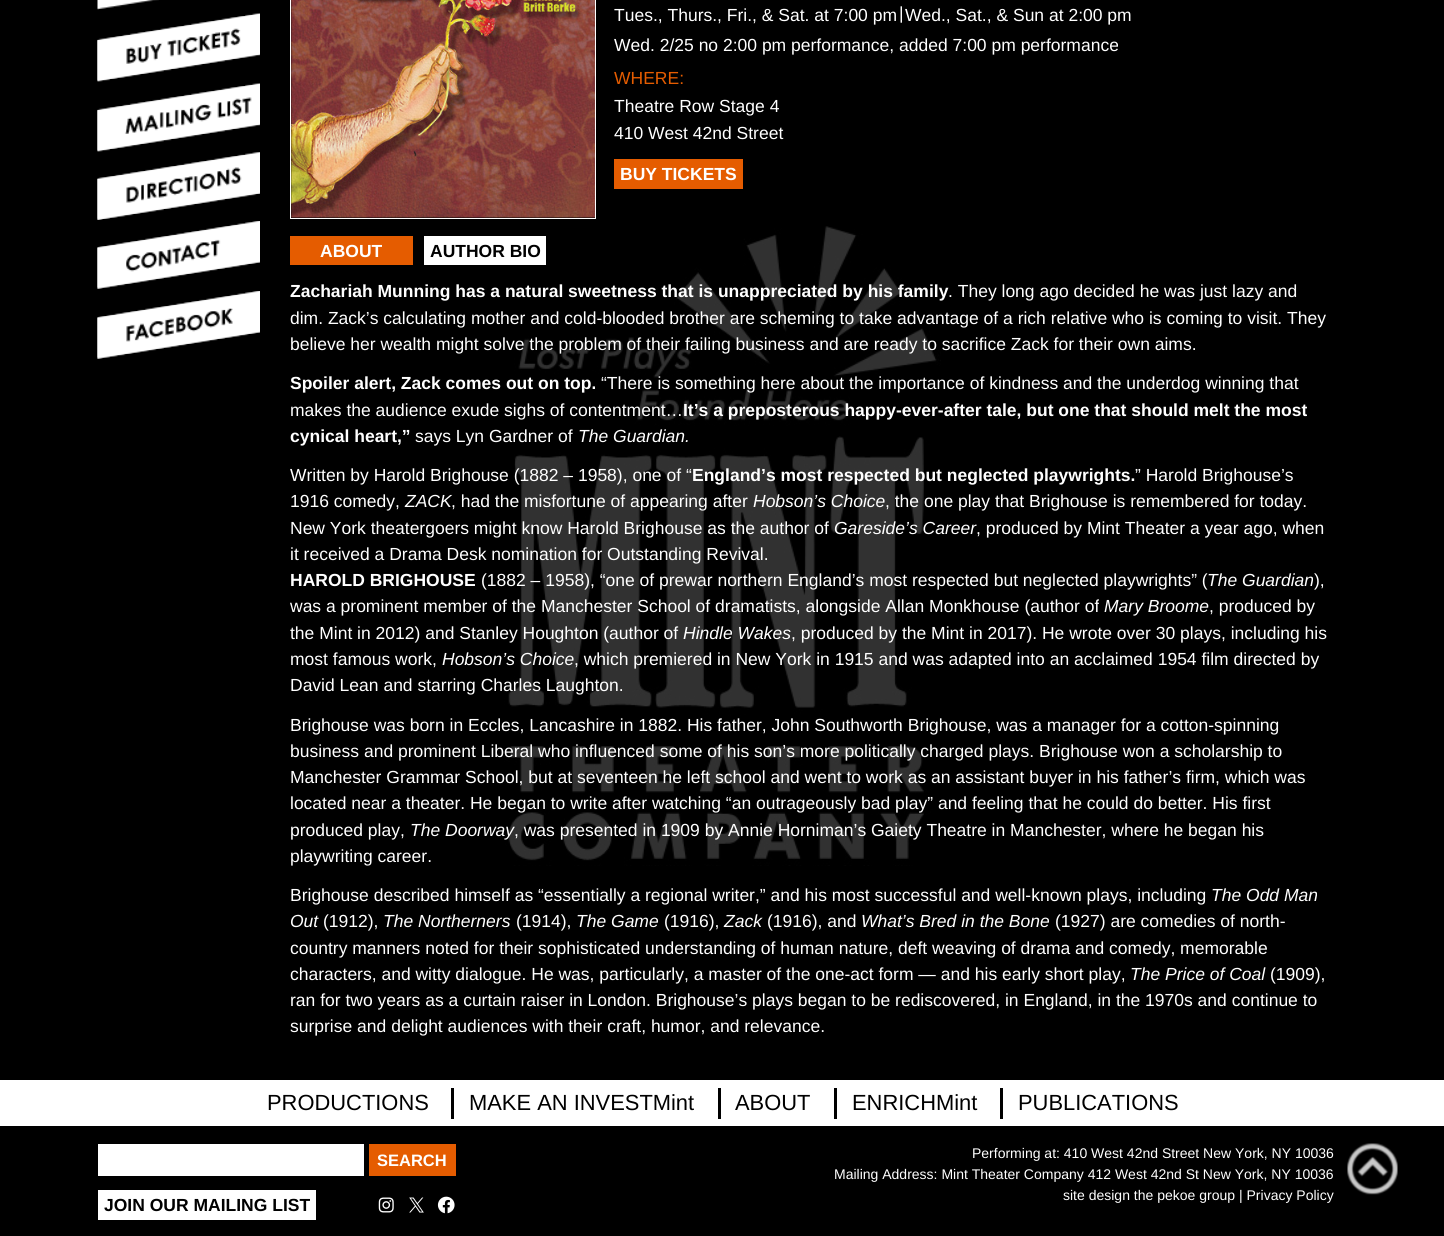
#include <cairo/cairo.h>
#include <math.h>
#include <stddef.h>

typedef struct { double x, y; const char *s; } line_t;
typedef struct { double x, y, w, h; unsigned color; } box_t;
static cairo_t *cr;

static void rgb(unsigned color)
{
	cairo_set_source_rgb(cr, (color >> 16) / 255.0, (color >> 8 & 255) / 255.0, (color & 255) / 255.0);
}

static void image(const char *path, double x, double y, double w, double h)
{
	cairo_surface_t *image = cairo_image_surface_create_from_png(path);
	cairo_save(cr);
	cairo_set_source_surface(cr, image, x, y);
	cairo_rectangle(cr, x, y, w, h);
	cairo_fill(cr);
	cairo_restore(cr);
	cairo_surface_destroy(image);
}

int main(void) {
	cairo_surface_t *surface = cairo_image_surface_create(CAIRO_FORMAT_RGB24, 1444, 1236);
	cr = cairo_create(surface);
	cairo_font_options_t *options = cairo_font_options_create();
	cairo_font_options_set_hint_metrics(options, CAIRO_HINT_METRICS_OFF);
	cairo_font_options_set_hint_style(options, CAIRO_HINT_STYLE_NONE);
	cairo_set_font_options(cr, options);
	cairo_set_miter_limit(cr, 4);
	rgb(0x000000);
	cairo_paint(cr);
	image("img/1.png", 504, 226, 437, 640);
	image("img/2.png", 97, 0, 62, 10);
	image("img/3.png", 97, 13, 163, 69);
	image("img/4.png", 97, 13, 163, 69);
	image("img/5.png", 97, 83, 163, 69);
	image("img/6.png", 97, 83, 163, 69);
	image("img/7.png", 97, 152, 163, 68);
	image("img/8.png", 97, 152, 163, 68);
	image("img/9.png", 97, 221, 163, 68);
	image("img/10.png", 97, 221, 163, 68);
	image("img/11.png", 97, 291, 163, 68);
	image("img/12.png", 97, 291, 163, 68);
	cairo_rectangle(cr, 290.5, -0.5, 305, 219);
	rgb(0xffffff);
	cairo_set_line_width(cr, 1);
	cairo_stroke(cr);
	image("img/13.png", 291, 0, 304, 218);
	{
		static const box_t items[] = {
			{614, 159, 129, 30, 0xe55c00},
			{290, 236, 123, 29, 0xe55c00},
			{424, 236, 122, 29, 0xffffff},
			{0, 1080, 1444, 46, 0xffffff},
			{451, 1088, 3, 31, 0x000000},
			{718, 1088, 3, 31, 0x000000},
			{834, 1088, 3, 31, 0x000000},
			{1000, 1088, 3, 31, 0x000000},
			{98, 1144, 266, 32, 0xffffff},
			{369, 1144, 87, 32, 0xe55c00},
			{98, 1190, 218, 30, 0xffffff},
		};
		for (size_t i = 0; i < sizeof items / sizeof *items; i++) {
			rgb(items[i].color);
			cairo_rectangle(cr, items[i].x, items[i].y, items[i].w, items[i].h);
			cairo_fill(cr);
		}
	}
	image("img/14.png", 378, 1197, 16, 16);
	image("img/15.png", 409, 1197, 15, 16);
	image("img/16.png", 437, 1196, 18, 18);
	image("img/17.png", 1347, 1143, 51, 52);
	cairo_select_font_face(cr, "Liberation Sans", CAIRO_FONT_SLANT_NORMAL, CAIRO_FONT_WEIGHT_NORMAL);
	cairo_set_font_size(cr, 17.5);
	{
		static const line_t items[] = {
			{614, 21, "Tues., Thurs., Fri., & Sat. at 7:00 pm"},
			{899, 19, "|"},
			{905, 21, "Wed., Sat., & Sun at 2:00 pm"},
			{614, 51, "Wed. 2/25 no 2:00 pm performance, added 7:00 pm performance"},
		};
		for (size_t i = 0; i < sizeof items / sizeof *items; i++) {
			cairo_move_to(cr, items[i].x, items[i].y);
			cairo_show_text(cr, items[i].s);
		}
	}
	rgb(0xe55c00);
	cairo_move_to(cr, 614, 84);
	cairo_show_text(cr, "WHERE:");
	rgb(0xffffff);
	cairo_move_to(cr, 614, 112);
	cairo_show_text(cr, "Theatre Row Stage 4");
	cairo_move_to(cr, 614, 139);
	cairo_show_text(cr, "410 West 42nd Street");
	cairo_select_font_face(cr, "Liberation Sans", CAIRO_FONT_SLANT_NORMAL, CAIRO_FONT_WEIGHT_BOLD);
	cairo_move_to(cr, 620, 180);
	cairo_show_text(cr, "BUY TICKETS");
	cairo_move_to(cr, 320, 257);
	cairo_show_text(cr, "ABOUT");
	rgb(0x000000);
	cairo_move_to(cr, 430, 257);
	cairo_show_text(cr, "AUTHOR BIO");
	rgb(0xffffff);
	cairo_move_to(cr, 290, 297);
	cairo_show_text(cr, "Zachariah Munning has a natural sweetness that is unappreciated by his family");
	cairo_select_font_face(cr, "Liberation Sans", CAIRO_FONT_SLANT_NORMAL, CAIRO_FONT_WEIGHT_NORMAL);
	{
		static const line_t items[] = {
			{948, 297, ". They long ago decided he was just lazy and"},
			{290, 324, "dim. Zack’s calculating mother and cold-blooded brother are scheming to take advantage of a rich relative who is coming to visit. They"},
			{290, 350, "believe her wealth might solve the problem of their failing business and are ready to sacrifice Zack for their own aims."},
		};
		for (size_t i = 0; i < sizeof items / sizeof *items; i++) {
			cairo_move_to(cr, items[i].x, items[i].y);
			cairo_show_text(cr, items[i].s);
		}
	}
	cairo_select_font_face(cr, "Liberation Sans", CAIRO_FONT_SLANT_NORMAL, CAIRO_FONT_WEIGHT_BOLD);
	cairo_move_to(cr, 290, 389);
	cairo_show_text(cr, "Spoiler alert, Zack comes out on top.");
	cairo_select_font_face(cr, "Liberation Sans", CAIRO_FONT_SLANT_NORMAL, CAIRO_FONT_WEIGHT_NORMAL);
	cairo_move_to(cr, 601, 389);
	cairo_show_text(cr, "“There is something here about the importance of kindness and the underdog winning that");
	cairo_move_to(cr, 290, 416);
	cairo_show_text(cr, "makes the audience exude sighs of contentment…");
	cairo_select_font_face(cr, "Liberation Sans", CAIRO_FONT_SLANT_NORMAL, CAIRO_FONT_WEIGHT_BOLD);
	cairo_move_to(cr, 683, 416);
	cairo_show_text(cr, "It’s a preposterous happy-ever-after tale, but one that should melt the most");
	cairo_move_to(cr, 290, 442);
	cairo_show_text(cr, "cynical heart,”");
	cairo_select_font_face(cr, "Liberation Sans", CAIRO_FONT_SLANT_NORMAL, CAIRO_FONT_WEIGHT_NORMAL);
	cairo_move_to(cr, 415, 442);
	cairo_show_text(cr, "says Lyn Gardner of");
	cairo_select_font_face(cr, "Liberation Sans", CAIRO_FONT_SLANT_ITALIC, CAIRO_FONT_WEIGHT_NORMAL);
	cairo_move_to(cr, 578, 442);
	cairo_show_text(cr, "The Guardian.");
	cairo_select_font_face(cr, "Liberation Sans", CAIRO_FONT_SLANT_NORMAL, CAIRO_FONT_WEIGHT_NORMAL);
	cairo_move_to(cr, 290, 481);
	cairo_show_text(cr, "Written by Harold Brighouse (1882 – 1958), one of “");
	cairo_select_font_face(cr, "Liberation Sans", CAIRO_FONT_SLANT_NORMAL, CAIRO_FONT_WEIGHT_BOLD);
	cairo_move_to(cr, 692, 481);
	cairo_show_text(cr, "England’s most respected but neglected playwrights.");
	cairo_select_font_face(cr, "Liberation Sans", CAIRO_FONT_SLANT_NORMAL, CAIRO_FONT_WEIGHT_NORMAL);
	cairo_move_to(cr, 1135, 481);
	cairo_show_text(cr, "” Harold Brighouse’s");
	cairo_move_to(cr, 290, 507);
	cairo_show_text(cr, "1916 comedy,");
	cairo_select_font_face(cr, "Liberation Sans", CAIRO_FONT_SLANT_ITALIC, CAIRO_FONT_WEIGHT_NORMAL);
	cairo_move_to(cr, 405, 507);
	cairo_show_text(cr, "ZACK");
	cairo_select_font_face(cr, "Liberation Sans", CAIRO_FONT_SLANT_NORMAL, CAIRO_FONT_WEIGHT_NORMAL);
	cairo_move_to(cr, 451, 507);
	cairo_show_text(cr, ", had the misfortune of appearing after");
	cairo_select_font_face(cr, "Liberation Sans", CAIRO_FONT_SLANT_ITALIC, CAIRO_FONT_WEIGHT_NORMAL);
	cairo_move_to(cr, 753, 507);
	cairo_show_text(cr, "Hobson’s Choice");
	cairo_select_font_face(cr, "Liberation Sans", CAIRO_FONT_SLANT_NORMAL, CAIRO_FONT_WEIGHT_NORMAL);
	cairo_move_to(cr, 885, 507);
	cairo_show_text(cr, ", the one play that Brighouse is remembered for today.");
	cairo_move_to(cr, 290, 534);
	cairo_show_text(cr, "New York theatergoers might know Harold Brighouse as the author of");
	cairo_select_font_face(cr, "Liberation Sans", CAIRO_FONT_SLANT_ITALIC, CAIRO_FONT_WEIGHT_NORMAL);
	cairo_move_to(cr, 834, 534);
	cairo_show_text(cr, "Gareside’s Career");
	cairo_select_font_face(cr, "Liberation Sans", CAIRO_FONT_SLANT_NORMAL, CAIRO_FONT_WEIGHT_NORMAL);
	cairo_move_to(cr, 976, 534);
	cairo_show_text(cr, ", produced by Mint Theater a year ago, when");
	cairo_move_to(cr, 290, 560);
	cairo_show_text(cr, "it received a Drama Desk nomination for Outstanding Revival.");
	cairo_select_font_face(cr, "Liberation Sans", CAIRO_FONT_SLANT_NORMAL, CAIRO_FONT_WEIGHT_BOLD);
	cairo_move_to(cr, 290, 586);
	cairo_show_text(cr, "HAROLD BRIGHOUSE");
	cairo_select_font_face(cr, "Liberation Sans", CAIRO_FONT_SLANT_NORMAL, CAIRO_FONT_WEIGHT_NORMAL);
	cairo_move_to(cr, 481, 586);
	cairo_show_text(cr, "(1882 – 1958), “one of prewar northern England’s most respected but neglected playwrights” (");
	cairo_select_font_face(cr, "Liberation Sans", CAIRO_FONT_SLANT_ITALIC, CAIRO_FONT_WEIGHT_NORMAL);
	cairo_move_to(cr, 1207, 586);
	cairo_show_text(cr, "The Guardian");
	cairo_select_font_face(cr, "Liberation Sans", CAIRO_FONT_SLANT_NORMAL, CAIRO_FONT_WEIGHT_NORMAL);
	cairo_move_to(cr, 1314, 586);
	cairo_show_text(cr, "),");
	cairo_move_to(cr, 290, 612);
	cairo_show_text(cr, "was a prominent member of the Manchester School of dramatists, alongside Allan Monkhouse (author of");
	cairo_select_font_face(cr, "Liberation Sans", CAIRO_FONT_SLANT_ITALIC, CAIRO_FONT_WEIGHT_NORMAL);
	cairo_move_to(cr, 1104, 612);
	cairo_show_text(cr, "Mary Broome");
	cairo_select_font_face(cr, "Liberation Sans", CAIRO_FONT_SLANT_NORMAL, CAIRO_FONT_WEIGHT_NORMAL);
	cairo_move_to(cr, 1209, 612);
	cairo_show_text(cr, ", produced by");
	cairo_move_to(cr, 290, 639);
	cairo_show_text(cr, "the Mint in 2012) and Stanley Houghton (author of");
	cairo_select_font_face(cr, "Liberation Sans", CAIRO_FONT_SLANT_ITALIC, CAIRO_FONT_WEIGHT_NORMAL);
	cairo_move_to(cr, 683, 639);
	cairo_show_text(cr, "Hindle Wakes");
	cairo_select_font_face(cr, "Liberation Sans", CAIRO_FONT_SLANT_NORMAL, CAIRO_FONT_WEIGHT_NORMAL);
	cairo_move_to(cr, 791, 639);
	cairo_show_text(cr, ", produced by the Mint in 2017). He wrote over 30 plays, including his");
	cairo_move_to(cr, 290, 665);
	cairo_show_text(cr, "most famous work,");
	cairo_select_font_face(cr, "Liberation Sans", CAIRO_FONT_SLANT_ITALIC, CAIRO_FONT_WEIGHT_NORMAL);
	cairo_move_to(cr, 442, 665);
	cairo_show_text(cr, "Hobson’s Choice");
	cairo_select_font_face(cr, "Liberation Sans", CAIRO_FONT_SLANT_NORMAL, CAIRO_FONT_WEIGHT_NORMAL);
	{
		static const line_t items[] = {
			{574, 665, ", which premiered in New York in 1915 and was adapted into an acclaimed 1954 film directed by"},
			{290, 691, "David Lean and starring Charles Laughton."},
			{290, 731, "Brighouse was born in Eccles, Lancashire in 1882. His father, John Southworth Brighouse, was a manager for a cotton-spinning"},
			{290, 757, "business and prominent Liberal who influenced some of his son’s more politically charged plays. Brighouse won a scholarship to"},
			{290, 783, "Manchester Grammar School, but at seventeen he left school and went to work as an assistant buyer in his father’s firm, which was"},
			{290, 809, "located near a theater. He began to write after watching “an outrageously bad play” and feeling that he could do better. His first"},
			{290, 836, "produced play,"},
		};
		for (size_t i = 0; i < sizeof items / sizeof *items; i++) {
			cairo_move_to(cr, items[i].x, items[i].y);
			cairo_show_text(cr, items[i].s);
		}
	}
	cairo_select_font_face(cr, "Liberation Sans", CAIRO_FONT_SLANT_ITALIC, CAIRO_FONT_WEIGHT_NORMAL);
	cairo_move_to(cr, 410, 836);
	cairo_show_text(cr, "The Doorway");
	cairo_select_font_face(cr, "Liberation Sans", CAIRO_FONT_SLANT_NORMAL, CAIRO_FONT_WEIGHT_NORMAL);
	{
		static const line_t items[] = {
			{514, 836, ", was presented in 1909 by Annie Horniman’s Gaiety Theatre in Manchester, where he began his"},
			{290, 862, "playwriting career."},
			{290, 901, "Brighouse described himself as “essentially a regional writer,” and his most successful and well-known plays, including"},
		};
		for (size_t i = 0; i < sizeof items / sizeof *items; i++) {
			cairo_move_to(cr, items[i].x, items[i].y);
			cairo_show_text(cr, items[i].s);
		}
	}
	cairo_select_font_face(cr, "Liberation Sans", CAIRO_FONT_SLANT_ITALIC, CAIRO_FONT_WEIGHT_NORMAL);
	cairo_move_to(cr, 1211, 901);
	cairo_show_text(cr, "The Odd Man");
	cairo_move_to(cr, 290, 927);
	cairo_show_text(cr, "Out");
	cairo_select_font_face(cr, "Liberation Sans", CAIRO_FONT_SLANT_NORMAL, CAIRO_FONT_WEIGHT_NORMAL);
	cairo_move_to(cr, 323, 927);
	cairo_show_text(cr, "(1912),");
	cairo_select_font_face(cr, "Liberation Sans", CAIRO_FONT_SLANT_ITALIC, CAIRO_FONT_WEIGHT_NORMAL);
	cairo_move_to(cr, 383, 927);
	cairo_show_text(cr, "The Northerners");
	cairo_select_font_face(cr, "Liberation Sans", CAIRO_FONT_SLANT_NORMAL, CAIRO_FONT_WEIGHT_NORMAL);
	cairo_move_to(cr, 516, 927);
	cairo_show_text(cr, "(1914),");
	cairo_select_font_face(cr, "Liberation Sans", CAIRO_FONT_SLANT_ITALIC, CAIRO_FONT_WEIGHT_NORMAL);
	cairo_move_to(cr, 576, 927);
	cairo_show_text(cr, "The Game");
	cairo_select_font_face(cr, "Liberation Sans", CAIRO_FONT_SLANT_NORMAL, CAIRO_FONT_WEIGHT_NORMAL);
	cairo_move_to(cr, 664, 927);
	cairo_show_text(cr, "(1916),");
	cairo_select_font_face(cr, "Liberation Sans", CAIRO_FONT_SLANT_ITALIC, CAIRO_FONT_WEIGHT_NORMAL);
	cairo_move_to(cr, 724, 927);
	cairo_show_text(cr, "Zack");
	cairo_select_font_face(cr, "Liberation Sans", CAIRO_FONT_SLANT_NORMAL, CAIRO_FONT_WEIGHT_NORMAL);
	cairo_move_to(cr, 767, 927);
	cairo_show_text(cr, "(1916), and");
	cairo_select_font_face(cr, "Liberation Sans", CAIRO_FONT_SLANT_ITALIC, CAIRO_FONT_WEIGHT_NORMAL);
	cairo_move_to(cr, 861, 927);
	cairo_show_text(cr, "What’s Bred in the Bone");
	cairo_select_font_face(cr, "Liberation Sans", CAIRO_FONT_SLANT_NORMAL, CAIRO_FONT_WEIGHT_NORMAL);
	{
		static const line_t items[] = {
			{1055, 927, "(1927) are comedies of north-"},
			{290, 954, "country manners noted for their sophisticated understanding of human nature, deft weaving of drama and comedy, memorable"},
			{290, 980, "characters, and witty dialogue. He was, particularly, a master of the one-act form — and his early short play,"},
		};
		for (size_t i = 0; i < sizeof items / sizeof *items; i++) {
			cairo_move_to(cr, items[i].x, items[i].y);
			cairo_show_text(cr, items[i].s);
		}
	}
	cairo_select_font_face(cr, "Liberation Sans", CAIRO_FONT_SLANT_ITALIC, CAIRO_FONT_WEIGHT_NORMAL);
	cairo_move_to(cr, 1130, 980);
	cairo_show_text(cr, "The Price of Coal");
	cairo_select_font_face(cr, "Liberation Sans", CAIRO_FONT_SLANT_NORMAL, CAIRO_FONT_WEIGHT_NORMAL);
	{
		static const line_t items[] = {
			{1270, 980, "(1909),"},
			{290, 1006, "ran for two years as a curtain raiser in London. Brighouse’s plays began to be rediscovered, in England, in the 1970s and continue to"},
			{290, 1032, "surprise and delight audiences with their craft, humor, and relevance."},
		};
		for (size_t i = 0; i < sizeof items / sizeof *items; i++) {
			cairo_move_to(cr, items[i].x, items[i].y);
			cairo_show_text(cr, items[i].s);
		}
	}
	cairo_set_font_size(cr, 21.9);
	rgb(0x000000);
	{
		static const line_t items[] = {
			{267, 1110, "PRODUCTIONS"},
			{469, 1110, "MAKE AN INVESTMint"},
			{735, 1110, "ABOUT"},
			{852, 1110, "ENRICHMint"},
			{1018, 1110, "PUBLICATIONS"},
		};
		for (size_t i = 0; i < sizeof items / sizeof *items; i++) {
			cairo_move_to(cr, items[i].x, items[i].y);
			cairo_show_text(cr, items[i].s);
		}
	}
	cairo_select_font_face(cr, "Liberation Sans", CAIRO_FONT_SLANT_NORMAL, CAIRO_FONT_WEIGHT_BOLD);
	cairo_set_font_size(cr, 16.5);
	rgb(0xffffff);
	cairo_move_to(cr, 377, 1166);
	cairo_show_text(cr, "SEARCH");
	cairo_set_font_size(cr, 17.5);
	rgb(0x000000);
	cairo_move_to(cr, 104, 1211);
	cairo_show_text(cr, "JOIN OUR MAILING LIST");
	cairo_select_font_face(cr, "Liberation Sans", CAIRO_FONT_SLANT_NORMAL, CAIRO_FONT_WEIGHT_NORMAL);
	cairo_set_font_size(cr, 14);
	rgb(0xffffff);
	{
		static const line_t items[] = {
			{972, 1158, "Performing at: 410 West 42nd Street New York, NY 10036"},
			{834, 1179, "Mailing Address: Mint Theater Company 412 West 42nd St New York, NY 10036"},
			{1063, 1200, "site design the pekoe group"},
			{1239, 1200, "| Privacy Policy"},
		};
		for (size_t i = 0; i < sizeof items / sizeof *items; i++) {
			cairo_move_to(cr, items[i].x, items[i].y);
			cairo_show_text(cr, items[i].s);
		}
	}
	cairo_surface_write_to_png(surface, "page.png");
	cairo_font_options_destroy(options);
	cairo_destroy(cr);
	cairo_surface_destroy(surface);
	return 0;
}
